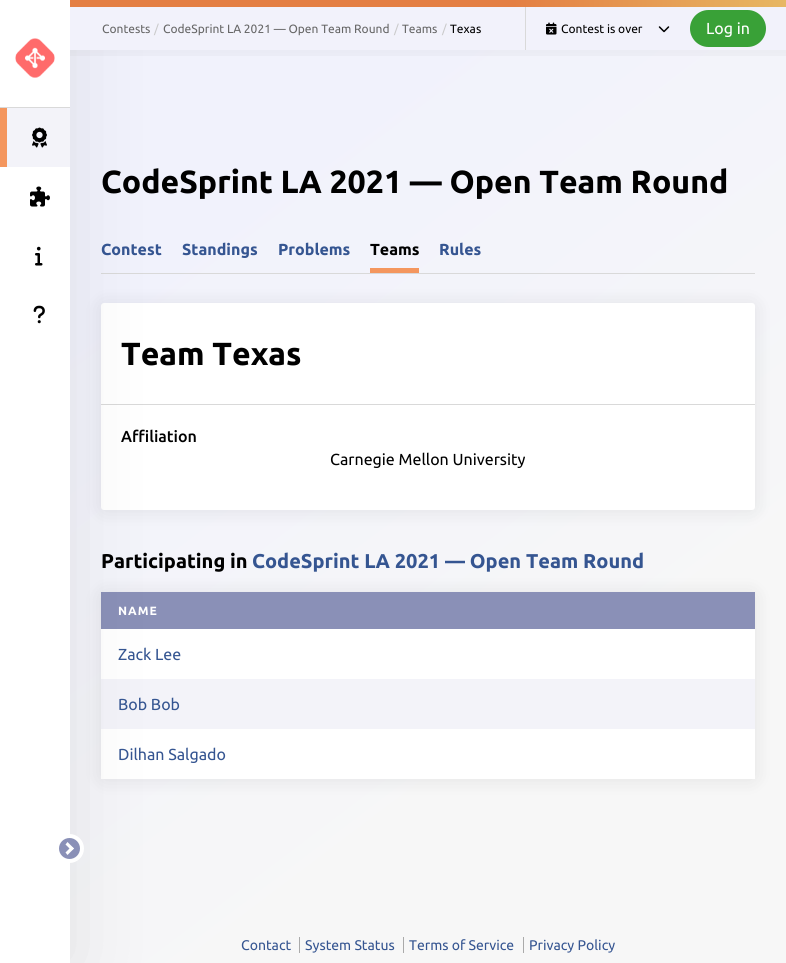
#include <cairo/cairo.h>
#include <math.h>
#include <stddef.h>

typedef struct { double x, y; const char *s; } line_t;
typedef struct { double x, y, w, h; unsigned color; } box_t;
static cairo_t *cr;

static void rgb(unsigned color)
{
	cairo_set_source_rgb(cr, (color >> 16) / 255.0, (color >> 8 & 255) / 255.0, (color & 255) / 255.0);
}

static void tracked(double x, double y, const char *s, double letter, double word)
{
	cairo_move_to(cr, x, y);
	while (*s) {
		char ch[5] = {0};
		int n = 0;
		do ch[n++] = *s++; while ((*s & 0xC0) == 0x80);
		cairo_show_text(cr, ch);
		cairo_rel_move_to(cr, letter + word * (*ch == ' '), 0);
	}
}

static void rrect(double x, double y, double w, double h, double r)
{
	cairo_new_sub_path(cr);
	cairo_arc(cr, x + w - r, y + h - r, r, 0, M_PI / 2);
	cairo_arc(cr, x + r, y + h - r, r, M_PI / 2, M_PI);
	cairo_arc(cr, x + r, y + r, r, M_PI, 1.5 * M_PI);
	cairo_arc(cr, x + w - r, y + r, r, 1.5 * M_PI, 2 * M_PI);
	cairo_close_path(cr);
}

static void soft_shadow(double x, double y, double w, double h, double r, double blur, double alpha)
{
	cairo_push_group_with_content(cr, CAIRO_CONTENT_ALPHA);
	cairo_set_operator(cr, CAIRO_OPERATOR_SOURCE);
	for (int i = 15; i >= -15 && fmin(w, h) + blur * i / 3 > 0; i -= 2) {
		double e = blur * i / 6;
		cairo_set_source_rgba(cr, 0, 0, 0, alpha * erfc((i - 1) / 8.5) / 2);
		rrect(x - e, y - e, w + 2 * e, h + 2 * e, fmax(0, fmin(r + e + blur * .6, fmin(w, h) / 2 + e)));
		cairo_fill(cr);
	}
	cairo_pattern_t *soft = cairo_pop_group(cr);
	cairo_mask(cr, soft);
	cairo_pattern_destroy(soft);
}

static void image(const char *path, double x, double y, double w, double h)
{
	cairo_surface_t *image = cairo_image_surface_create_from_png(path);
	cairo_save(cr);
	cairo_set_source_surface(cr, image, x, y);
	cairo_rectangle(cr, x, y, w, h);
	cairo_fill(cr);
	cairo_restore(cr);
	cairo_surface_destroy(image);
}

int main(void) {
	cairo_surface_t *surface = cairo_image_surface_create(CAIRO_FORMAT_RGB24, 786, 963);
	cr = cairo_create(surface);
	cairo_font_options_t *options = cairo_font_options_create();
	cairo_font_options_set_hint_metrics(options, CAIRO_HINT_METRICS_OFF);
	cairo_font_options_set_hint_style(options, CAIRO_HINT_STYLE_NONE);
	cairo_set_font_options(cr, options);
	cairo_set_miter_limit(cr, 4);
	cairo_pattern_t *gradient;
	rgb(0xffffff);
	cairo_paint(cr);
	gradient = cairo_pattern_create_linear(19, -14, 767, 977);
	cairo_pattern_add_color_stop_rgba(gradient, 0.22, 0.945, 0.949, 0.988, 1);
	cairo_pattern_add_color_stop_rgba(gradient, 0.75, 0.969, 0.969, 0.969, 1);
	cairo_set_source(cr, gradient);
	cairo_pattern_destroy(gradient);
	cairo_rectangle(cr, 70, 50, 716, 913);
	cairo_fill(cr);
	rgb(0xd9d9d9);
	cairo_rectangle(cr, 101, 273, 654, 1);
	cairo_fill(cr);
	rgb(0x000000);
	soft_shadow(101, 304, 654, 207, 3, 10, 0.08);
	rgb(0xffffff);
	rrect(101, 303, 654, 207, 3);
	cairo_fill(cr);
	rgb(0xd9d9d9);
	cairo_rectangle(cr, 101, 404, 654, 1);
	cairo_fill(cr);
	rgb(0x000000);
	soft_shadow(101, 593, 654, 187, 3, 10, 0.08);
	{
		static const box_t items[] = {
			{101, 629, 654, 50, 0xffffff},
			{101, 592, 654, 37, 0x8a90b7},
			{101, 679, 654, 50, 0xf3f3f9},
			{101, 729, 654, 50, 0xffffff},
		};
		for (size_t i = 0; i < sizeof items / sizeof *items; i++) {
			rgb(items[i].color);
			cairo_rectangle(cr, items[i].x, items[i].y, items[i].w, items[i].h);
			cairo_fill(cr);
		}
	}
	rgb(0x000000);
	soft_shadow(0, 2, 70, 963, 0, 40, 0.09);
	rgb(0xffffff);
	cairo_rectangle(cr, 0, 0, 70, 963);
	cairo_fill(cr);
	rgb(0xd9d9d9);
	cairo_rectangle(cr, 0, 107, 70, 1);
	cairo_fill(cr);
	image("img/1.png", 15, 38, 40, 40);
	rgb(0xf3f3f9);
	cairo_rectangle(cr, 7, 108, 63, 59);
	cairo_fill(cr);
	rgb(0xf4965e);
	cairo_rectangle(cr, 0, 108, 7, 59);
	cairo_fill(cr);
	image("img/2.png", 32, 127, 15, 21);
	image("img/3.png", 30, 186, 20, 21);
	image("img/4.png", 35, 246, 8, 20);
	image("img/5.png", 33, 305, 12, 19);
	rgb(0x8a90b7);
	cairo_arc(cr, 69.5, 848.5, 12.5, 0, 2 * M_PI);
	cairo_fill_preserve(cr);
	rgb(0xffffff);
	cairo_set_line_width(cr, 4);
	cairo_stroke(cr);
	cairo_new_path(cr);
	cairo_move_to(cr, 65.5, 844.5);
	cairo_line_to(cr, 67.5, 842);
	cairo_line_to(cr, 74, 848.5);
	cairo_line_to(cr, 71.5, 850.5);
	cairo_close_path(cr);
	cairo_fill(cr);
	cairo_new_path(cr);
	cairo_move_to(cr, 65.5, 852.5);
	cairo_line_to(cr, 71.5, 846.5);
	cairo_line_to(cr, 74, 848.5);
	cairo_line_to(cr, 67.5, 855);
	cairo_close_path(cr);
	cairo_fill(cr);
	rgb(0xf2f2fb);
	cairo_rectangle(cr, 70, 7, 716, 43);
	cairo_fill(cr);
	gradient = cairo_pattern_create_linear(786, 3.5, 70, 3.5);
	cairo_pattern_add_color_stop_rgba(gradient, 0, 0.906, 0.718, 0.388, 1);
	cairo_pattern_add_color_stop_rgba(gradient, 0.38, 0.894, 0.498, 0.263, 1);
	cairo_set_source(cr, gradient);
	cairo_pattern_destroy(gradient);
	cairo_rectangle(cr, 70, 0, 716, 7);
	cairo_fill(cr);
	rgb(0xd9d9d9);
	cairo_rectangle(cr, 525, 7, 1, 43);
	cairo_fill(cr);
	image("img/6.png", 546, 22, 11, 13);
	image("img/7.png", 658, 26, 12, 7);
	rgb(0x39a137);
	rrect(690, 10, 76, 37, 18.5);
	cairo_fill(cr);
	gradient = cairo_pattern_create_linear(428, 50, 428, 70);
	cairo_pattern_add_color_stop_rgba(gradient, 0, 0, 0, 0, 0.03);
	cairo_pattern_add_color_stop_rgba(gradient, 1, 0, 0, 0, 0);
	cairo_set_source(cr, gradient);
	cairo_pattern_destroy(gradient);
	cairo_rectangle(cr, 70, 50, 716, 6);
	cairo_fill(cr);
	{
		static const box_t items[] = {
			{370, 268, 49, 5, 0xf4965e},
			{299, 937, 1, 16, 0xaaaaaa},
			{403, 937, 1, 16, 0xaaaaaa},
			{523, 937, 1, 16, 0xaaaaaa},
		};
		for (size_t i = 0; i < sizeof items / sizeof *items; i++) {
			rgb(items[i].color);
			cairo_rectangle(cr, items[i].x, items[i].y, items[i].w, items[i].h);
			cairo_fill(cr);
		}
	}
	cairo_select_font_face(cr, "Ubuntu", CAIRO_FONT_SLANT_NORMAL, CAIRO_FONT_WEIGHT_NORMAL);
	cairo_set_font_size(cr, 12);
	rgb(0x666666);
	cairo_move_to(cr, 102, 33);
	cairo_show_text(cr, "Contests");
	rgb(0xcacaca);
	cairo_move_to(cr, 154, 33);
	cairo_show_text(cr, "/");
	rgb(0x666666);
	cairo_move_to(cr, 163, 33);
	cairo_show_text(cr, "CodeSprint LA 2021 — Open Team Round");
	rgb(0xcacaca);
	cairo_move_to(cr, 394, 33);
	cairo_show_text(cr, "/");
	rgb(0x666666);
	cairo_move_to(cr, 402, 33);
	cairo_show_text(cr, "Teams");
	rgb(0xcacaca);
	cairo_move_to(cr, 442, 33);
	cairo_show_text(cr, "/");
	rgb(0x000000);
	cairo_move_to(cr, 450, 33);
	cairo_show_text(cr, "Texas");
	cairo_move_to(cr, 561, 33);
	cairo_show_text(cr, "Contest is over");
	cairo_set_font_size(cr, 16);
	rgb(0xffffff);
	cairo_move_to(cr, 706, 34);
	cairo_show_text(cr, "Log in");
	cairo_select_font_face(cr, "Ubuntu", CAIRO_FONT_SLANT_NORMAL, CAIRO_FONT_WEIGHT_BOLD);
	cairo_set_font_size(cr, 32);
	rgb(0x000000);
	cairo_move_to(cr, 101, 193);
	cairo_show_text(cr, "CodeSprint LA 2021 — Open Team Round");
	cairo_set_font_size(cr, 16);
	rgb(0x355591);
	{
		static const line_t items[] = {
			{101, 255, "Contest"},
			{182, 255, "Standings"},
			{278, 255, "Problems"},
		};
		for (size_t i = 0; i < sizeof items / sizeof *items; i++) {
			cairo_move_to(cr, items[i].x, items[i].y);
			cairo_show_text(cr, items[i].s);
		}
	}
	rgb(0x000000);
	cairo_move_to(cr, 370, 255);
	cairo_show_text(cr, "Teams");
	rgb(0x355591);
	cairo_move_to(cr, 439, 255);
	cairo_show_text(cr, "Rules");
	cairo_set_font_size(cr, 32);
	rgb(0x000000);
	cairo_move_to(cr, 121, 365);
	cairo_show_text(cr, "Team Texas");
	cairo_select_font_face(cr, "Ubuntu Medium", CAIRO_FONT_SLANT_NORMAL, CAIRO_FONT_WEIGHT_NORMAL);
	cairo_set_font_size(cr, 16);
	cairo_move_to(cr, 121, 442);
	cairo_show_text(cr, "Affiliation");
	cairo_select_font_face(cr, "Ubuntu", CAIRO_FONT_SLANT_NORMAL, CAIRO_FONT_WEIGHT_NORMAL);
	cairo_move_to(cr, 330, 465);
	cairo_show_text(cr, "Carnegie Mellon University");
	cairo_select_font_face(cr, "Ubuntu", CAIRO_FONT_SLANT_NORMAL, CAIRO_FONT_WEIGHT_BOLD);
	cairo_set_font_size(cr, 20);
	cairo_move_to(cr, 101, 568);
	cairo_show_text(cr, "Participating in");
	rgb(0x355591);
	cairo_move_to(cr, 252, 568);
	cairo_show_text(cr, "CodeSprint LA 2021 — Open Team Round");
	cairo_set_font_size(cr, 12);
	rgb(0xffffff);
	tracked(118, 615, "NAME", 1, 0);
	cairo_select_font_face(cr, "Ubuntu", CAIRO_FONT_SLANT_NORMAL, CAIRO_FONT_WEIGHT_NORMAL);
	cairo_set_font_size(cr, 16);
	rgb(0x355591);
	{
		static const line_t items[] = {
			{118, 660, "Zack Lee"},
			{118, 710, "Bob Bob"},
			{118, 760, "Dilhan Salgado"},
		};
		for (size_t i = 0; i < sizeof items / sizeof *items; i++) {
			cairo_move_to(cr, items[i].x, items[i].y);
			cairo_show_text(cr, items[i].s);
		}
	}
	cairo_set_font_size(cr, 14);
	{
		static const line_t items[] = {
			{241, 950, "Contact"},
			{305, 950, "System Status"},
			{409, 950, "Terms of Service"},
			{529, 950, "Privacy Policy"},
		};
		for (size_t i = 0; i < sizeof items / sizeof *items; i++) {
			cairo_move_to(cr, items[i].x, items[i].y);
			cairo_show_text(cr, items[i].s);
		}
	}
	cairo_surface_write_to_png(surface, "page.png");
	cairo_font_options_destroy(options);
	cairo_destroy(cr);
	cairo_surface_destroy(surface);
	return 0;
}
